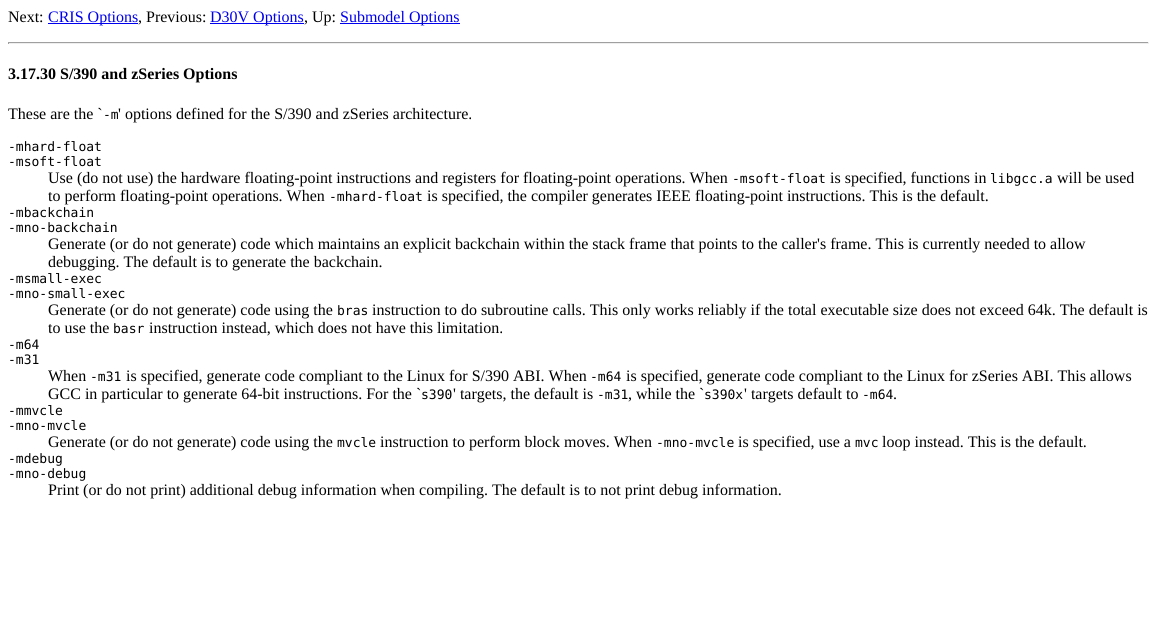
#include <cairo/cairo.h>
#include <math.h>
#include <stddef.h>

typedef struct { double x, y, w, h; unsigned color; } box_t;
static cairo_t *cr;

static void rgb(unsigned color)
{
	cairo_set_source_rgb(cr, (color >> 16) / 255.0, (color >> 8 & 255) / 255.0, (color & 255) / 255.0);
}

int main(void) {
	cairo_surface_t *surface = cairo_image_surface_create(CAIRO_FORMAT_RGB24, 1157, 625);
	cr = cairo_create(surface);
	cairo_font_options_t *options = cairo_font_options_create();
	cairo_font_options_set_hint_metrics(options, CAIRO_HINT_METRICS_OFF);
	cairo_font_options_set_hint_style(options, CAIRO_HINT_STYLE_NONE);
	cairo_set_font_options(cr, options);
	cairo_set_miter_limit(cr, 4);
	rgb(0xffffff);
	cairo_paint(cr);
	{
		static const box_t items[] = {
			{48, 23, 90, 1, 0x0000ee},
			{210, 23, 94, 1, 0x0000ee},
			{340, 23, 120, 1, 0x0000ee},
			{8, 42, 1141, 1, 0x9f9f9f},
			{1148, 42, 1, 2, 0xeeeeee},
			{8, 43, 1141, 1, 0xeeeeee},
			{8, 42, 1, 2, 0x9f9f9f},
		};
		for (size_t i = 0; i < sizeof items / sizeof *items; i++) {
			rgb(items[i].color);
			cairo_rectangle(cr, items[i].x, items[i].y, items[i].w, items[i].h);
			cairo_fill(cr);
		}
	}
	cairo_select_font_face(cr, "Liberation Serif", CAIRO_FONT_SLANT_NORMAL, CAIRO_FONT_WEIGHT_NORMAL);
	cairo_set_font_size(cr, 16);
	rgb(0x000000);
	cairo_move_to(cr, 8, 22);
	cairo_show_text(cr, "Next:");
	rgb(0x0000ee);
	cairo_move_to(cr, 48, 22);
	cairo_show_text(cr, "CRIS Options");
	rgb(0x000000);
	cairo_move_to(cr, 138, 22);
	cairo_show_text(cr, ", Previous:");
	rgb(0x0000ee);
	cairo_move_to(cr, 210, 22);
	cairo_show_text(cr, "D30V Options");
	rgb(0x000000);
	cairo_move_to(cr, 304, 22);
	cairo_show_text(cr, ", Up:");
	rgb(0x0000ee);
	cairo_move_to(cr, 340, 22);
	cairo_show_text(cr, "Submodel Options");
	cairo_select_font_face(cr, "Liberation Serif", CAIRO_FONT_SLANT_NORMAL, CAIRO_FONT_WEIGHT_BOLD);
	rgb(0x000000);
	cairo_move_to(cr, 8, 79);
	cairo_show_text(cr, "3.17.30 S/390 and zSeries Options");
	cairo_select_font_face(cr, "Liberation Serif", CAIRO_FONT_SLANT_NORMAL, CAIRO_FONT_WEIGHT_NORMAL);
	cairo_move_to(cr, 8, 119);
	cairo_show_text(cr, "These are the `");
	cairo_select_font_face(cr, "DejaVu Sans Mono", CAIRO_FONT_SLANT_NORMAL, CAIRO_FONT_WEIGHT_NORMAL);
	cairo_set_font_size(cr, 13);
	cairo_move_to(cr, 103, 119);
	cairo_show_text(cr, "-m");
	cairo_select_font_face(cr, "Liberation Serif", CAIRO_FONT_SLANT_NORMAL, CAIRO_FONT_WEIGHT_NORMAL);
	cairo_set_font_size(cr, 16);
	cairo_move_to(cr, 118, 119);
	cairo_show_text(cr, "' options defined for the S/390 and zSeries architecture.");
	cairo_select_font_face(cr, "DejaVu Sans Mono", CAIRO_FONT_SLANT_NORMAL, CAIRO_FONT_WEIGHT_NORMAL);
	cairo_set_font_size(cr, 13);
	cairo_move_to(cr, 8, 151);
	cairo_show_text(cr, "-mhard-float");
	cairo_move_to(cr, 8, 166);
	cairo_show_text(cr, "-msoft-float");
	cairo_select_font_face(cr, "Liberation Serif", CAIRO_FONT_SLANT_NORMAL, CAIRO_FONT_WEIGHT_NORMAL);
	cairo_set_font_size(cr, 16);
	cairo_move_to(cr, 48, 183);
	cairo_show_text(cr, "Use (do not use) the hardware floating-point instructions and registers for floating-point operations. When");
	cairo_select_font_face(cr, "DejaVu Sans Mono", CAIRO_FONT_SLANT_NORMAL, CAIRO_FONT_WEIGHT_NORMAL);
	cairo_set_font_size(cr, 13);
	cairo_move_to(cr, 732, 183);
	cairo_show_text(cr, "-msoft-float");
	cairo_select_font_face(cr, "Liberation Serif", CAIRO_FONT_SLANT_NORMAL, CAIRO_FONT_WEIGHT_NORMAL);
	cairo_set_font_size(cr, 16);
	cairo_move_to(cr, 830, 183);
	cairo_show_text(cr, "is specified, functions in");
	cairo_select_font_face(cr, "DejaVu Sans Mono", CAIRO_FONT_SLANT_NORMAL, CAIRO_FONT_WEIGHT_NORMAL);
	cairo_set_font_size(cr, 13);
	cairo_move_to(cr, 990, 183);
	cairo_show_text(cr, "libgcc.a");
	cairo_select_font_face(cr, "Liberation Serif", CAIRO_FONT_SLANT_NORMAL, CAIRO_FONT_WEIGHT_NORMAL);
	cairo_set_font_size(cr, 16);
	cairo_move_to(cr, 1057, 183);
	cairo_show_text(cr, "will be used");
	cairo_move_to(cr, 48, 201);
	cairo_show_text(cr, "to perform floating-point operations. When");
	cairo_select_font_face(cr, "DejaVu Sans Mono", CAIRO_FONT_SLANT_NORMAL, CAIRO_FONT_WEIGHT_NORMAL);
	cairo_set_font_size(cr, 13);
	cairo_move_to(cr, 329, 201);
	cairo_show_text(cr, "-mhard-float");
	cairo_select_font_face(cr, "Liberation Serif", CAIRO_FONT_SLANT_NORMAL, CAIRO_FONT_WEIGHT_NORMAL);
	cairo_set_font_size(cr, 16);
	cairo_move_to(cr, 427, 201);
	cairo_show_text(cr, "is specified, the compiler generates IEEE floating-point instructions. This is the default.");
	cairo_select_font_face(cr, "DejaVu Sans Mono", CAIRO_FONT_SLANT_NORMAL, CAIRO_FONT_WEIGHT_NORMAL);
	cairo_set_font_size(cr, 13);
	cairo_move_to(cr, 8, 217);
	cairo_show_text(cr, "-mbackchain");
	cairo_move_to(cr, 8, 232);
	cairo_show_text(cr, "-mno-backchain");
	cairo_select_font_face(cr, "Liberation Serif", CAIRO_FONT_SLANT_NORMAL, CAIRO_FONT_WEIGHT_NORMAL);
	cairo_set_font_size(cr, 16);
	cairo_move_to(cr, 48, 249);
	cairo_show_text(cr, "Generate (or do not generate) code which maintains an explicit backchain within the stack frame that points to the caller's frame. This is currently needed to allow");
	cairo_move_to(cr, 48, 267);
	cairo_show_text(cr, "debugging. The default is to generate the backchain.");
	cairo_select_font_face(cr, "DejaVu Sans Mono", CAIRO_FONT_SLANT_NORMAL, CAIRO_FONT_WEIGHT_NORMAL);
	cairo_set_font_size(cr, 13);
	cairo_move_to(cr, 8, 283);
	cairo_show_text(cr, "-msmall-exec");
	cairo_move_to(cr, 8, 298);
	cairo_show_text(cr, "-mno-small-exec");
	cairo_select_font_face(cr, "Liberation Serif", CAIRO_FONT_SLANT_NORMAL, CAIRO_FONT_WEIGHT_NORMAL);
	cairo_set_font_size(cr, 16);
	cairo_move_to(cr, 48, 315);
	cairo_show_text(cr, "Generate (or do not generate) code using the");
	cairo_select_font_face(cr, "DejaVu Sans Mono", CAIRO_FONT_SLANT_NORMAL, CAIRO_FONT_WEIGHT_NORMAL);
	cairo_set_font_size(cr, 13);
	cairo_move_to(cr, 337, 315);
	cairo_show_text(cr, "bras");
	cairo_select_font_face(cr, "Liberation Serif", CAIRO_FONT_SLANT_NORMAL, CAIRO_FONT_WEIGHT_NORMAL);
	cairo_set_font_size(cr, 16);
	cairo_move_to(cr, 372, 315);
	cairo_show_text(cr, "instruction to do subroutine calls. This only works reliably if the total executable size does not exceed 64k. The default is");
	cairo_move_to(cr, 48, 333);
	cairo_show_text(cr, "to use the");
	cairo_select_font_face(cr, "DejaVu Sans Mono", CAIRO_FONT_SLANT_NORMAL, CAIRO_FONT_WEIGHT_NORMAL);
	cairo_set_font_size(cr, 13);
	cairo_move_to(cr, 113, 333);
	cairo_show_text(cr, "basr");
	cairo_select_font_face(cr, "Liberation Serif", CAIRO_FONT_SLANT_NORMAL, CAIRO_FONT_WEIGHT_NORMAL);
	cairo_set_font_size(cr, 16);
	cairo_move_to(cr, 149, 333);
	cairo_show_text(cr, "instruction instead, which does not have this limitation.");
	cairo_select_font_face(cr, "DejaVu Sans Mono", CAIRO_FONT_SLANT_NORMAL, CAIRO_FONT_WEIGHT_NORMAL);
	cairo_set_font_size(cr, 13);
	cairo_move_to(cr, 8, 349);
	cairo_show_text(cr, "-m64");
	cairo_move_to(cr, 8, 364);
	cairo_show_text(cr, "-m31");
	cairo_select_font_face(cr, "Liberation Serif", CAIRO_FONT_SLANT_NORMAL, CAIRO_FONT_WEIGHT_NORMAL);
	cairo_set_font_size(cr, 16);
	cairo_move_to(cr, 48, 381);
	cairo_show_text(cr, "When");
	cairo_select_font_face(cr, "DejaVu Sans Mono", CAIRO_FONT_SLANT_NORMAL, CAIRO_FONT_WEIGHT_NORMAL);
	cairo_set_font_size(cr, 13);
	cairo_move_to(cr, 90, 381);
	cairo_show_text(cr, "-m31");
	cairo_select_font_face(cr, "Liberation Serif", CAIRO_FONT_SLANT_NORMAL, CAIRO_FONT_WEIGHT_NORMAL);
	cairo_set_font_size(cr, 16);
	cairo_move_to(cr, 126, 381);
	cairo_show_text(cr, "is specified, generate code compliant to the Linux for S/390 ABI. When");
	cairo_select_font_face(cr, "DejaVu Sans Mono", CAIRO_FONT_SLANT_NORMAL, CAIRO_FONT_WEIGHT_NORMAL);
	cairo_set_font_size(cr, 13);
	cairo_move_to(cr, 590, 381);
	cairo_show_text(cr, "-m64");
	cairo_select_font_face(cr, "Liberation Serif", CAIRO_FONT_SLANT_NORMAL, CAIRO_FONT_WEIGHT_NORMAL);
	cairo_set_font_size(cr, 16);
	cairo_move_to(cr, 626, 381);
	cairo_show_text(cr, "is specified, generate code compliant to the Linux for zSeries ABI. This allows");
	cairo_move_to(cr, 48, 399);
	cairo_show_text(cr, "GCC in particular to generate 64-bit instructions. For the `");
	cairo_select_font_face(cr, "DejaVu Sans Mono", CAIRO_FONT_SLANT_NORMAL, CAIRO_FONT_WEIGHT_NORMAL);
	cairo_set_font_size(cr, 13);
	cairo_move_to(cr, 421, 399);
	cairo_show_text(cr, "s390");
	cairo_select_font_face(cr, "Liberation Serif", CAIRO_FONT_SLANT_NORMAL, CAIRO_FONT_WEIGHT_NORMAL);
	cairo_set_font_size(cr, 16);
	cairo_move_to(cr, 453, 399);
	cairo_show_text(cr, "' targets, the default is");
	cairo_select_font_face(cr, "DejaVu Sans Mono", CAIRO_FONT_SLANT_NORMAL, CAIRO_FONT_WEIGHT_NORMAL);
	cairo_set_font_size(cr, 13);
	cairo_move_to(cr, 597, 399);
	cairo_show_text(cr, "-m31");
	cairo_select_font_face(cr, "Liberation Serif", CAIRO_FONT_SLANT_NORMAL, CAIRO_FONT_WEIGHT_NORMAL);
	cairo_set_font_size(cr, 16);
	cairo_move_to(cr, 628, 399);
	cairo_show_text(cr, ", while the `");
	cairo_select_font_face(cr, "DejaVu Sans Mono", CAIRO_FONT_SLANT_NORMAL, CAIRO_FONT_WEIGHT_NORMAL);
	cairo_set_font_size(cr, 13);
	cairo_move_to(cr, 704, 399);
	cairo_show_text(cr, "s390x");
	cairo_select_font_face(cr, "Liberation Serif", CAIRO_FONT_SLANT_NORMAL, CAIRO_FONT_WEIGHT_NORMAL);
	cairo_set_font_size(cr, 16);
	cairo_move_to(cr, 744, 399);
	cairo_show_text(cr, "' targets default to");
	cairo_select_font_face(cr, "DejaVu Sans Mono", CAIRO_FONT_SLANT_NORMAL, CAIRO_FONT_WEIGHT_NORMAL);
	cairo_set_font_size(cr, 13);
	cairo_move_to(cr, 862, 399);
	cairo_show_text(cr, "-m64");
	cairo_select_font_face(cr, "Liberation Serif", CAIRO_FONT_SLANT_NORMAL, CAIRO_FONT_WEIGHT_NORMAL);
	cairo_set_font_size(cr, 16);
	cairo_move_to(cr, 893, 399);
	cairo_show_text(cr, ".");
	cairo_select_font_face(cr, "DejaVu Sans Mono", CAIRO_FONT_SLANT_NORMAL, CAIRO_FONT_WEIGHT_NORMAL);
	cairo_set_font_size(cr, 13);
	cairo_move_to(cr, 8, 415);
	cairo_show_text(cr, "-mmvcle");
	cairo_move_to(cr, 8, 430);
	cairo_show_text(cr, "-mno-mvcle");
	cairo_select_font_face(cr, "Liberation Serif", CAIRO_FONT_SLANT_NORMAL, CAIRO_FONT_WEIGHT_NORMAL);
	cairo_set_font_size(cr, 16);
	cairo_move_to(cr, 48, 447);
	cairo_show_text(cr, "Generate (or do not generate) code using the");
	cairo_select_font_face(cr, "DejaVu Sans Mono", CAIRO_FONT_SLANT_NORMAL, CAIRO_FONT_WEIGHT_NORMAL);
	cairo_set_font_size(cr, 13);
	cairo_move_to(cr, 337, 447);
	cairo_show_text(cr, "mvcle");
	cairo_select_font_face(cr, "Liberation Serif", CAIRO_FONT_SLANT_NORMAL, CAIRO_FONT_WEIGHT_NORMAL);
	cairo_set_font_size(cr, 16);
	cairo_move_to(cr, 380, 447);
	cairo_show_text(cr, "instruction to perform block moves. When");
	cairo_select_font_face(cr, "DejaVu Sans Mono", CAIRO_FONT_SLANT_NORMAL, CAIRO_FONT_WEIGHT_NORMAL);
	cairo_set_font_size(cr, 13);
	cairo_move_to(cr, 656, 447);
	cairo_show_text(cr, "-mno-mvcle");
	cairo_select_font_face(cr, "Liberation Serif", CAIRO_FONT_SLANT_NORMAL, CAIRO_FONT_WEIGHT_NORMAL);
	cairo_set_font_size(cr, 16);
	cairo_move_to(cr, 738, 447);
	cairo_show_text(cr, "is specified, use a");
	cairo_select_font_face(cr, "DejaVu Sans Mono", CAIRO_FONT_SLANT_NORMAL, CAIRO_FONT_WEIGHT_NORMAL);
	cairo_set_font_size(cr, 13);
	cairo_move_to(cr, 855, 447);
	cairo_show_text(cr, "mvc");
	cairo_select_font_face(cr, "Liberation Serif", CAIRO_FONT_SLANT_NORMAL, CAIRO_FONT_WEIGHT_NORMAL);
	cairo_set_font_size(cr, 16);
	cairo_move_to(cr, 882, 447);
	cairo_show_text(cr, "loop instead. This is the default.");
	cairo_select_font_face(cr, "DejaVu Sans Mono", CAIRO_FONT_SLANT_NORMAL, CAIRO_FONT_WEIGHT_NORMAL);
	cairo_set_font_size(cr, 13);
	cairo_move_to(cr, 8, 463);
	cairo_show_text(cr, "-mdebug");
	cairo_move_to(cr, 8, 478);
	cairo_show_text(cr, "-mno-debug");
	cairo_select_font_face(cr, "Liberation Serif", CAIRO_FONT_SLANT_NORMAL, CAIRO_FONT_WEIGHT_NORMAL);
	cairo_set_font_size(cr, 16);
	cairo_move_to(cr, 48, 495);
	cairo_show_text(cr, "Print (or do not print) additional debug information when compiling. The default is to not print debug information.");
	cairo_surface_write_to_png(surface, "page.png");
	cairo_font_options_destroy(options);
	cairo_destroy(cr);
	cairo_surface_destroy(surface);
	return 0;
}
